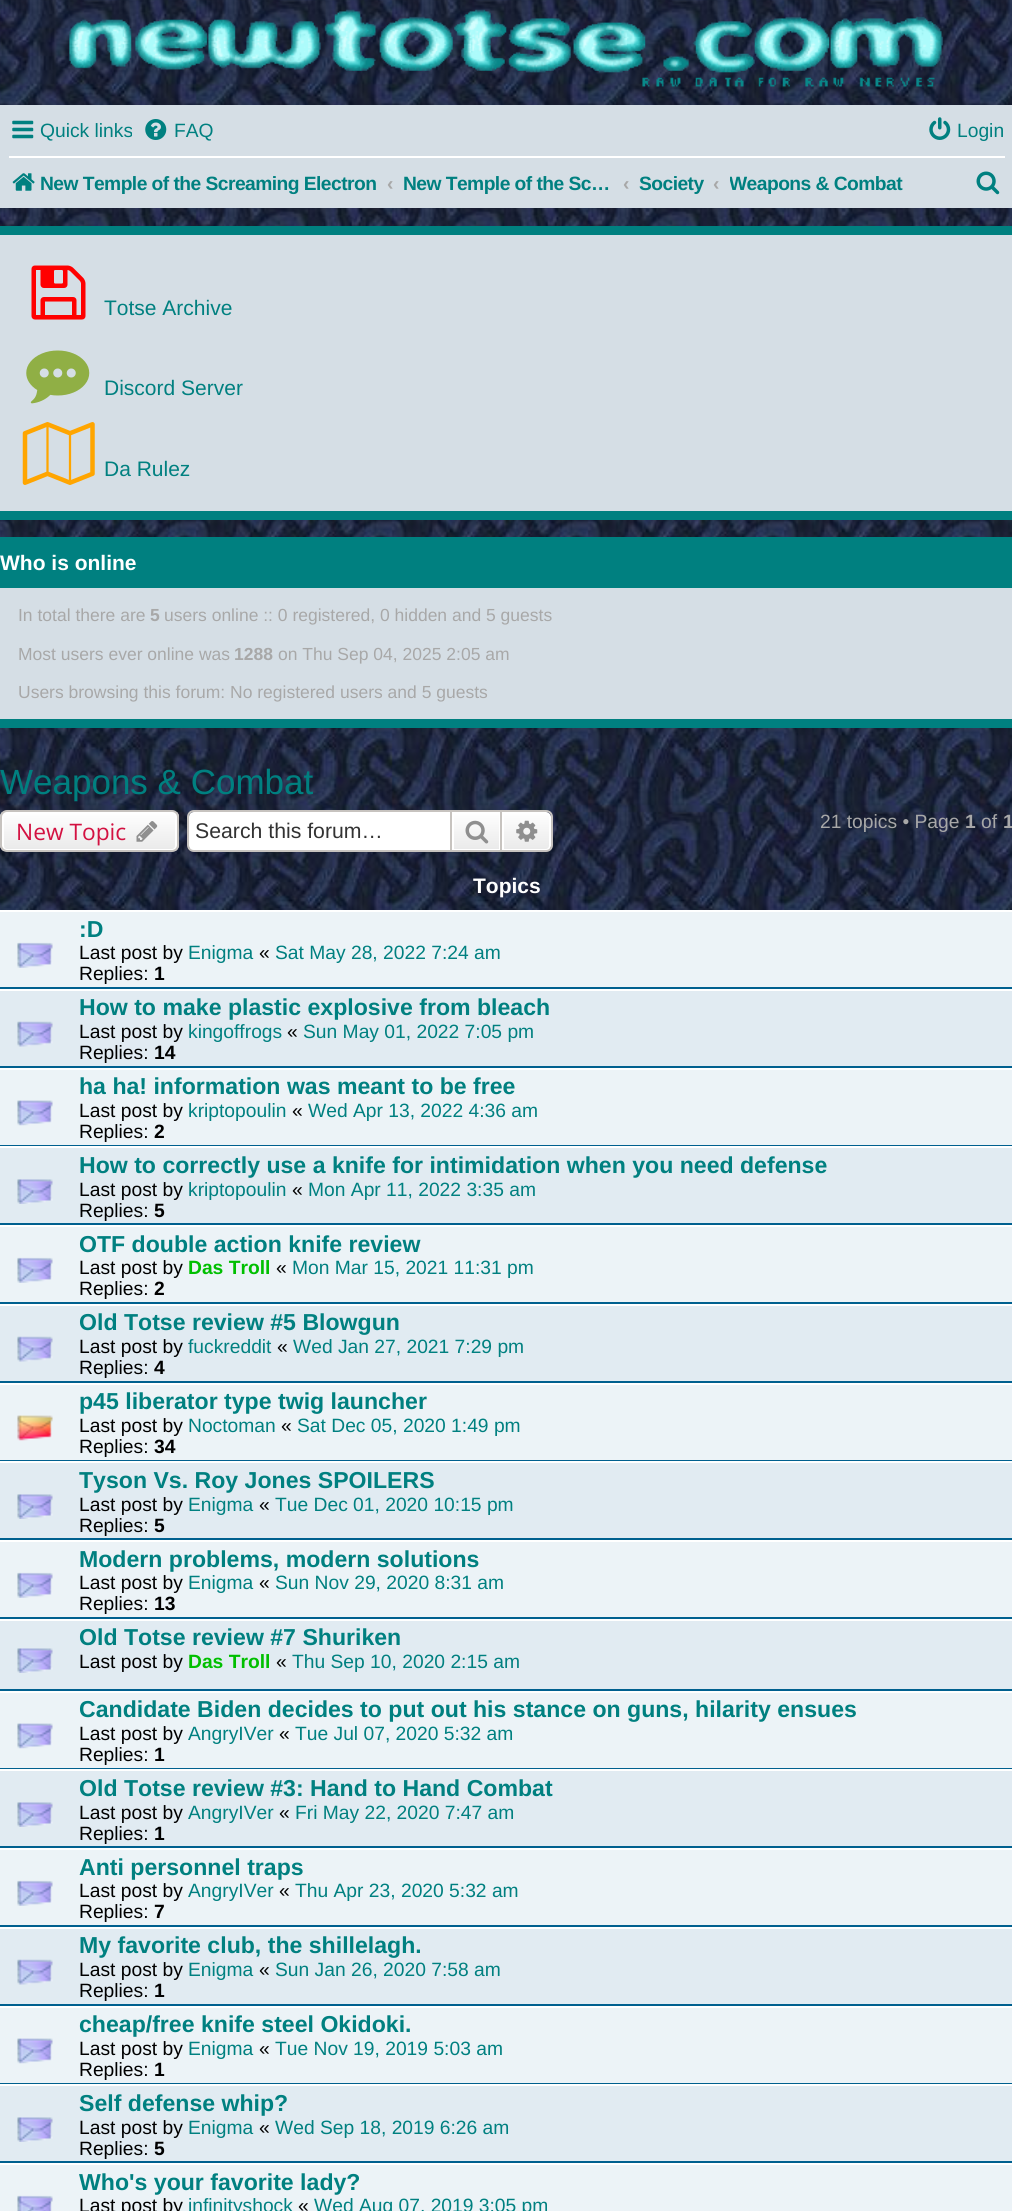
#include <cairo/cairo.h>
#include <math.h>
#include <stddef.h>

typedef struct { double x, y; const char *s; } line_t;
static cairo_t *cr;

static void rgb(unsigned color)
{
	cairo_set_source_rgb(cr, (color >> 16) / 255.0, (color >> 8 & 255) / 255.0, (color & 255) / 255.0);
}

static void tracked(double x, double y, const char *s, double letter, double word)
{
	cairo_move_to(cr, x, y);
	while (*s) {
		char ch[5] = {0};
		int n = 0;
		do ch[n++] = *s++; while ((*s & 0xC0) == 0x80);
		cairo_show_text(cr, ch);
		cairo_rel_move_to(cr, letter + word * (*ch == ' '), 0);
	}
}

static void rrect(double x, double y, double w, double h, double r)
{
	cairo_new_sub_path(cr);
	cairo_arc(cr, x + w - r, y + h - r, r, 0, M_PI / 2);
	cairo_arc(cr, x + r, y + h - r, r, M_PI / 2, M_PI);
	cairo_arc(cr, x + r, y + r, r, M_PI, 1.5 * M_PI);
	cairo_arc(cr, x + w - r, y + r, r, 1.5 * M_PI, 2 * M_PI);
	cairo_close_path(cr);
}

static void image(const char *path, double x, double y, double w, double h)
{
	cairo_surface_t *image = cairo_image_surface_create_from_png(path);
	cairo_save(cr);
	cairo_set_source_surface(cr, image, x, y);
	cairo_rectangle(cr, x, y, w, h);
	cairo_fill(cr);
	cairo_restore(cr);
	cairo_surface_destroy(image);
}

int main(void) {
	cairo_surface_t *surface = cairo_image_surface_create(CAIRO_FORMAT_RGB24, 1012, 2211);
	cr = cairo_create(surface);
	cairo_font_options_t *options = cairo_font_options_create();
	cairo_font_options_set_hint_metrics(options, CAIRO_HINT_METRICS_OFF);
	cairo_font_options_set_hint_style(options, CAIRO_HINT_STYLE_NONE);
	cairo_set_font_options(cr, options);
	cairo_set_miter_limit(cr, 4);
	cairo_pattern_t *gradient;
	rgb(0xffffff);
	cairo_paint(cr);
	image("img/1.png", 0, 0, 1012, 910);
	image("img/2.png", 69, 9, 874, 78);
	rgb(0xd5dee5);
	cairo_rectangle(cr, 0, 105, 1012, 103);
	cairo_fill(cr);
	image("img/3.png", 12, 120, 22, 19);
	image("img/4.png", 145, 119, 22, 21);
	image("img/5.png", 929, 117, 22, 23);
	rgb(0xffffff);
	cairo_rectangle(cr, 9, 156, 996, 2);
	cairo_fill(cr);
	image("img/6.png", 12, 173, 23, 18);
	image("img/7.png", 976, 171, 24, 24);
	rgb(0x008080);
	cairo_rectangle(cr, 0, 226, 1012, 294);
	cairo_fill(cr);
	rgb(0xd5dee5);
	cairo_rectangle(cr, 0, 235, 1012, 276);
	cairo_fill(cr);
	image("img/8.png", 31, 265, 55, 55);
	image("img/9.png", 26, 350, 64, 54);
	image("img/10.png", 22, 422, 73, 63);
	rgb(0x008080);
	cairo_rectangle(cr, 0, 537, 1012, 191);
	cairo_fill(cr);
	rgb(0xd5dee5);
	cairo_rectangle(cr, 0, 588, 1012, 131);
	cairo_fill(cr);
	cairo_save(cr);
	rrect(0, 810, 179, 42, 7);
	cairo_clip(cr);
	gradient = cairo_pattern_create_linear(89, 812, 89, 851);
	cairo_pattern_add_color_stop_rgba(gradient, 0, 1, 1, 1, 1);
	cairo_pattern_add_color_stop_rgba(gradient, 1, 0.914, 0.914, 0.914, 1);
	cairo_set_source(cr, gradient);
	cairo_pattern_destroy(gradient);
	cairo_rectangle(cr, 0, 812, 179, 39);
	cairo_fill(cr);
	cairo_restore(cr);
	rrect(3, 813, 173, 37, 4);
	rgb(0xffffff);
	cairo_stroke(cr);
	rrect(1, 811, 177, 40, 6);
	rgb(0xc7c3bf);
	cairo_stroke(cr);
	image("img/11.png", 136, 821, 22, 21);
	rgb(0xffffff);
	cairo_new_path(cr);
	cairo_move_to(cr, 194, 812);
	cairo_line_to(cr, 450, 812);
	cairo_line_to(cr, 450, 851);
	cairo_line_to(cr, 194, 851);
	cairo_curve_to(cr, 191, 851, 189, 849, 189, 846);
	cairo_line_to(cr, 189, 817);
	cairo_curve_to(cr, 189, 814, 191, 812, 194, 812);
	cairo_close_path(cr);
	cairo_fill(cr);
	rgb(0xc7c3bf);
	cairo_set_fill_rule(cr, CAIRO_FILL_RULE_EVEN_ODD);
	cairo_new_path(cr);
	cairo_move_to(cr, 194, 810);
	cairo_line_to(cr, 450, 810);
	cairo_line_to(cr, 450, 852);
	cairo_line_to(cr, 194, 852);
	cairo_curve_to(cr, 190, 852, 187, 849, 187, 845);
	cairo_line_to(cr, 187, 817);
	cairo_curve_to(cr, 187, 813, 190, 810, 194, 810);
	cairo_close_path(cr);
	cairo_move_to(cr, 194, 812);
	cairo_line_to(cr, 450, 812);
	cairo_line_to(cr, 450, 850);
	cairo_line_to(cr, 194, 850);
	cairo_curve_to(cr, 191, 850, 189, 848, 189, 845);
	cairo_line_to(cr, 189, 817);
	cairo_curve_to(cr, 189, 814, 191, 812, 194, 812);
	cairo_close_path(cr);
	cairo_fill(cr);
	gradient = cairo_pattern_create_linear(476, 812, 476, 851);
	cairo_pattern_add_color_stop_rgba(gradient, 0, 1, 1, 1, 1);
	cairo_pattern_add_color_stop_rgba(gradient, 1, 0.914, 0.914, 0.914, 1);
	cairo_set_source(cr, gradient);
	cairo_pattern_destroy(gradient);
	cairo_rectangle(cr, 454, 814, 45, 35);
	cairo_fill(cr);
	cairo_rectangle(cr, 453, 813, 47, 37);
	rgb(0xffffff);
	cairo_stroke(cr);
	cairo_rectangle(cr, 451, 811, 50, 40);
	rgb(0xc7c3bf);
	cairo_stroke(cr);
	image("img/12.png", 465, 820, 24, 24);
	gradient = cairo_pattern_create_linear(527, 812, 527, 851);
	cairo_pattern_add_color_stop_rgba(gradient, 0, 1, 1, 1, 1);
	cairo_pattern_add_color_stop_rgba(gradient, 1, 0.914, 0.914, 0.914, 1);
	cairo_set_source(cr, gradient);
	cairo_pattern_destroy(gradient);
	cairo_new_path(cr);
	cairo_move_to(cr, 503, 813);
	cairo_line_to(cr, 546, 813);
	cairo_curve_to(cr, 548, 813, 550, 815, 550, 817);
	cairo_line_to(cr, 550, 846);
	cairo_curve_to(cr, 550, 848, 548, 850, 546, 850);
	cairo_line_to(cr, 503, 850);
	cairo_close_path(cr);
	cairo_fill_preserve(cr);
	rgb(0xffffff);
	cairo_stroke(cr);
	rgb(0xc7c3bf);
	cairo_new_path(cr);
	cairo_move_to(cr, 502, 810);
	cairo_line_to(cr, 546, 810);
	cairo_curve_to(cr, 550, 810, 553, 813, 553, 817);
	cairo_line_to(cr, 553, 845);
	cairo_curve_to(cr, 553, 849, 550, 852, 546, 852);
	cairo_line_to(cr, 502, 852);
	cairo_close_path(cr);
	cairo_move_to(cr, 502, 812);
	cairo_line_to(cr, 546, 812);
	cairo_curve_to(cr, 549, 812, 551, 814, 551, 817);
	cairo_line_to(cr, 551, 845);
	cairo_curve_to(cr, 551, 848, 549, 850, 546, 850);
	cairo_line_to(cr, 502, 850);
	cairo_close_path(cr);
	cairo_fill(cr);
	image("img/13.png", 516, 820, 22, 22);
	rgb(0xecf3f7);
	cairo_rectangle(cr, 0, 912, 1012, 75);
	cairo_fill(cr);
	rgb(0x00608f);
	cairo_rectangle(cr, 0, 987, 1012, 2);
	cairo_fill(cr);
	image("img/14.png", 17, 942, 36, 26);
	rgb(0xe1ebf2);
	cairo_rectangle(cr, 0, 991, 1012, 75);
	cairo_fill(cr);
	rgb(0x00608f);
	cairo_rectangle(cr, 0, 1066, 1012, 2);
	cairo_fill(cr);
	image("img/15.png", 17, 1021, 36, 26);
	rgb(0xecf3f7);
	cairo_rectangle(cr, 0, 1070, 1012, 75);
	cairo_fill(cr);
	rgb(0x00608f);
	cairo_rectangle(cr, 0, 1145, 1012, 1);
	cairo_fill(cr);
	image("img/16.png", 17, 1100, 36, 26);
	rgb(0xe1ebf2);
	cairo_rectangle(cr, 0, 1148, 1012, 75);
	cairo_fill(cr);
	rgb(0x00608f);
	cairo_rectangle(cr, 0, 1223, 1012, 2);
	cairo_fill(cr);
	image("img/17.png", 17, 1179, 36, 25);
	rgb(0xecf3f7);
	cairo_rectangle(cr, 0, 1227, 1012, 75);
	cairo_fill(cr);
	rgb(0x00608f);
	cairo_rectangle(cr, 0, 1302, 1012, 2);
	cairo_fill(cr);
	image("img/14.png", 17, 1257, 36, 26);
	rgb(0xe1ebf2);
	cairo_rectangle(cr, 0, 1306, 1012, 75);
	cairo_fill(cr);
	rgb(0x00608f);
	cairo_rectangle(cr, 0, 1381, 1012, 2);
	cairo_fill(cr);
	image("img/15.png", 17, 1336, 36, 26);
	rgb(0xecf3f7);
	cairo_rectangle(cr, 0, 1385, 1012, 75);
	cairo_fill(cr);
	rgb(0x00608f);
	cairo_rectangle(cr, 0, 1460, 1012, 1);
	cairo_fill(cr);
	image("img/18.png", 17, 1415, 36, 26);
	rgb(0xe1ebf2);
	cairo_rectangle(cr, 0, 1463, 1012, 75);
	cairo_fill(cr);
	rgb(0x00608f);
	cairo_rectangle(cr, 0, 1538, 1012, 2);
	cairo_fill(cr);
	image("img/17.png", 17, 1494, 36, 25);
	rgb(0xecf3f7);
	cairo_rectangle(cr, 0, 1542, 1012, 75);
	cairo_fill(cr);
	rgb(0x00608f);
	cairo_rectangle(cr, 0, 1617, 1012, 2);
	cairo_fill(cr);
	image("img/14.png", 17, 1572, 36, 26);
	rgb(0xe1ebf2);
	cairo_rectangle(cr, 0, 1621, 1012, 68);
	cairo_fill(cr);
	rgb(0x00608f);
	cairo_rectangle(cr, 0, 1689, 1012, 2);
	cairo_fill(cr);
	image("img/17.png", 17, 1648, 36, 25);
	rgb(0xecf3f7);
	cairo_rectangle(cr, 0, 1693, 1012, 75);
	cairo_fill(cr);
	rgb(0x00608f);
	cairo_rectangle(cr, 0, 1768, 1012, 1);
	cairo_fill(cr);
	image("img/16.png", 17, 1723, 36, 26);
	rgb(0xe1ebf2);
	cairo_rectangle(cr, 0, 1771, 1012, 75);
	cairo_fill(cr);
	rgb(0x00608f);
	cairo_rectangle(cr, 0, 1846, 1012, 2);
	cairo_fill(cr);
	image("img/17.png", 17, 1802, 36, 25);
	rgb(0xecf3f7);
	cairo_rectangle(cr, 0, 1850, 1012, 75);
	cairo_fill(cr);
	rgb(0x00608f);
	cairo_rectangle(cr, 0, 1925, 1012, 2);
	cairo_fill(cr);
	image("img/19.png", 17, 1880, 36, 26);
	rgb(0xe1ebf2);
	cairo_rectangle(cr, 0, 1929, 1012, 75);
	cairo_fill(cr);
	rgb(0x00608f);
	cairo_rectangle(cr, 0, 2004, 1012, 2);
	cairo_fill(cr);
	image("img/15.png", 17, 1959, 36, 26);
	rgb(0xecf3f7);
	cairo_rectangle(cr, 0, 2008, 1012, 75);
	cairo_fill(cr);
	rgb(0x00608f);
	cairo_rectangle(cr, 0, 2083, 1012, 1);
	cairo_fill(cr);
	image("img/16.png", 17, 2038, 36, 26);
	rgb(0xe1ebf2);
	cairo_rectangle(cr, 0, 2086, 1012, 75);
	cairo_fill(cr);
	rgb(0x00608f);
	cairo_rectangle(cr, 0, 2161, 1012, 2);
	cairo_fill(cr);
	image("img/17.png", 17, 2117, 36, 25);
	rgb(0xecf3f7);
	cairo_rectangle(cr, 0, 2165, 1012, 46);
	cairo_fill(cr);
	image("img/20.png", 17, 2195, 36, 16);
	cairo_select_font_face(cr, "Liberation Sans", CAIRO_FONT_SLANT_NORMAL, CAIRO_FONT_WEIGHT_NORMAL);
	cairo_set_font_size(cr, 19.25);
	rgb(0x008080);
	{
		static const line_t items[] = {
			{40, 137, "Quick links"},
			{174, 137, "FAQ"},
			{957, 137, "Login"},
		};
		for (size_t i = 0; i < sizeof items / sizeof *items; i++) {
			cairo_move_to(cr, items[i].x, items[i].y);
			cairo_show_text(cr, items[i].s);
		}
	}
	cairo_select_font_face(cr, "Liberation Sans", CAIRO_FONT_SLANT_NORMAL, CAIRO_FONT_WEIGHT_BOLD);
	tracked(40, 190, "New Temple of the Screaming Electron", -0.55, 0);
	rgb(0xa8a8a8);
	cairo_move_to(cr, 387, 190);
	cairo_show_text(cr, "‹");
	rgb(0x008080);
	tracked(403, 190, "New Temple of the Sc…", -0.55, 0);
	rgb(0xa8a8a8);
	cairo_move_to(cr, 623, 190);
	cairo_show_text(cr, "‹");
	rgb(0x008080);
	tracked(639, 190, "Society", -0.55, 0);
	rgb(0xa8a8a8);
	cairo_move_to(cr, 713, 190);
	cairo_show_text(cr, "‹");
	cairo_save(cr);
	cairo_set_fill_rule(cr, CAIRO_FILL_RULE_WINDING);
	cairo_rectangle(cr, 730, 163, 173, 42);
	cairo_clip(cr);
	rgb(0x008080);
	tracked(729, 190, "Weapons & Combat", -0.55, 0);
	cairo_restore(cr);
	cairo_select_font_face(cr, "Liberation Sans", CAIRO_FONT_SLANT_NORMAL, CAIRO_FONT_WEIGHT_NORMAL);
	cairo_set_font_size(cr, 21);
	rgb(0x008080);
	{
		static const line_t items[] = {
			{104, 315, "Totse Archive"},
			{104, 395, "Discord Server"},
			{104, 476, "Da Rulez"},
		};
		for (size_t i = 0; i < sizeof items / sizeof *items; i++) {
			cairo_move_to(cr, items[i].x, items[i].y);
			cairo_show_text(cr, items[i].s);
		}
	}
	cairo_select_font_face(cr, "Liberation Sans", CAIRO_FONT_SLANT_NORMAL, CAIRO_FONT_WEIGHT_BOLD);
	rgb(0xffffff);
	cairo_move_to(cr, 0, 570);
	cairo_show_text(cr, "Who is online");
	cairo_select_font_face(cr, "Liberation Sans", CAIRO_FONT_SLANT_NORMAL, CAIRO_FONT_WEIGHT_NORMAL);
	cairo_set_font_size(cr, 17.5);
	rgb(0xa8a8a8);
	cairo_move_to(cr, 18, 621);
	cairo_show_text(cr, "In total there are");
	cairo_select_font_face(cr, "Liberation Sans", CAIRO_FONT_SLANT_NORMAL, CAIRO_FONT_WEIGHT_BOLD);
	cairo_move_to(cr, 150, 621);
	cairo_show_text(cr, "5");
	cairo_select_font_face(cr, "Liberation Sans", CAIRO_FONT_SLANT_NORMAL, CAIRO_FONT_WEIGHT_NORMAL);
	cairo_move_to(cr, 164, 621);
	cairo_show_text(cr, "users online :: 0 registered, 0 hidden and 5 guests");
	cairo_move_to(cr, 18, 660);
	cairo_show_text(cr, "Most users ever online was");
	cairo_select_font_face(cr, "Liberation Sans", CAIRO_FONT_SLANT_NORMAL, CAIRO_FONT_WEIGHT_BOLD);
	cairo_move_to(cr, 234, 660);
	cairo_show_text(cr, "1288");
	cairo_select_font_face(cr, "Liberation Sans", CAIRO_FONT_SLANT_NORMAL, CAIRO_FONT_WEIGHT_NORMAL);
	cairo_move_to(cr, 278, 660);
	cairo_show_text(cr, "on Thu Sep 04, 2025 2:05 am");
	cairo_move_to(cr, 18, 698);
	cairo_show_text(cr, "Users browsing this forum: No registered users and 5 guests");
	cairo_set_font_size(cr, 35);
	rgb(0x008080);
	cairo_move_to(cr, 0, 794);
	cairo_show_text(cr, "Weapons & Combat");
	cairo_select_font_face(cr, "Open Sans", CAIRO_FONT_SLANT_NORMAL, CAIRO_FONT_WEIGHT_NORMAL);
	cairo_set_font_size(cr, 22.75);
	rgb(0xd31141);
	cairo_move_to(cr, 16, 840);
	cairo_show_text(cr, "New Topic");
	cairo_select_font_face(cr, "Liberation Sans", CAIRO_FONT_SLANT_NORMAL, CAIRO_FONT_WEIGHT_NORMAL);
	cairo_set_font_size(cr, 21.25);
	rgb(0x333333);
	cairo_move_to(cr, 195, 838);
	cairo_show_text(cr, "Search this forum…");
	cairo_set_font_size(cr, 19.25);
	rgb(0xa8a8a8);
	cairo_move_to(cr, 820, 828);
	cairo_show_text(cr, "21 topics • Page");
	cairo_select_font_face(cr, "Liberation Sans", CAIRO_FONT_SLANT_NORMAL, CAIRO_FONT_WEIGHT_BOLD);
	cairo_move_to(cr, 965, 828);
	cairo_show_text(cr, "1");
	cairo_select_font_face(cr, "Liberation Sans", CAIRO_FONT_SLANT_NORMAL, CAIRO_FONT_WEIGHT_NORMAL);
	cairo_move_to(cr, 981, 828);
	cairo_show_text(cr, "of");
	cairo_select_font_face(cr, "Liberation Sans", CAIRO_FONT_SLANT_NORMAL, CAIRO_FONT_WEIGHT_BOLD);
	cairo_move_to(cr, 1003, 828);
	cairo_show_text(cr, "1");
	cairo_set_font_size(cr, 21);
	rgb(0xffffff);
	cairo_move_to(cr, 473, 893);
	cairo_show_text(cr, "Topics");
	cairo_set_font_size(cr, 23.1);
	rgb(0x008080);
	cairo_move_to(cr, 79, 937);
	cairo_show_text(cr, ":D");
	cairo_select_font_face(cr, "Liberation Sans", CAIRO_FONT_SLANT_NORMAL, CAIRO_FONT_WEIGHT_NORMAL);
	cairo_set_font_size(cr, 19.25);
	rgb(0x000000);
	cairo_move_to(cr, 79, 959);
	cairo_show_text(cr, "Last post by");
	rgb(0x008080);
	cairo_move_to(cr, 188, 959);
	cairo_show_text(cr, "Enigma");
	rgb(0x000000);
	cairo_move_to(cr, 259, 959);
	cairo_show_text(cr, "«");
	rgb(0x008080);
	cairo_move_to(cr, 275, 959);
	cairo_show_text(cr, "Sat May 28, 2022 7:24 am");
	rgb(0x000000);
	cairo_move_to(cr, 79, 980);
	cairo_show_text(cr, "Replies:");
	cairo_select_font_face(cr, "Liberation Sans", CAIRO_FONT_SLANT_NORMAL, CAIRO_FONT_WEIGHT_BOLD);
	cairo_move_to(cr, 154, 980);
	cairo_show_text(cr, "1");
	cairo_set_font_size(cr, 23.1);
	rgb(0x008080);
	cairo_move_to(cr, 79, 1015);
	cairo_show_text(cr, "How to make plastic explosive from bleach");
	cairo_select_font_face(cr, "Liberation Sans", CAIRO_FONT_SLANT_NORMAL, CAIRO_FONT_WEIGHT_NORMAL);
	cairo_set_font_size(cr, 19.25);
	rgb(0x000000);
	cairo_move_to(cr, 79, 1038);
	cairo_show_text(cr, "Last post by");
	rgb(0x008080);
	cairo_move_to(cr, 188, 1038);
	cairo_show_text(cr, "kingoffrogs");
	rgb(0x000000);
	cairo_move_to(cr, 287, 1038);
	cairo_show_text(cr, "«");
	rgb(0x008080);
	cairo_move_to(cr, 303, 1038);
	cairo_show_text(cr, "Sun May 01, 2022 7:05 pm");
	rgb(0x000000);
	cairo_move_to(cr, 79, 1059);
	cairo_show_text(cr, "Replies:");
	cairo_select_font_face(cr, "Liberation Sans", CAIRO_FONT_SLANT_NORMAL, CAIRO_FONT_WEIGHT_BOLD);
	cairo_move_to(cr, 154, 1059);
	cairo_show_text(cr, "14");
	cairo_set_font_size(cr, 23.1);
	rgb(0x008080);
	cairo_move_to(cr, 79, 1094);
	cairo_show_text(cr, "ha ha! information was meant to be free");
	cairo_select_font_face(cr, "Liberation Sans", CAIRO_FONT_SLANT_NORMAL, CAIRO_FONT_WEIGHT_NORMAL);
	cairo_set_font_size(cr, 19.25);
	rgb(0x000000);
	cairo_move_to(cr, 79, 1117);
	cairo_show_text(cr, "Last post by");
	rgb(0x008080);
	cairo_move_to(cr, 188, 1117);
	cairo_show_text(cr, "kriptopoulin");
	rgb(0x000000);
	cairo_move_to(cr, 292, 1117);
	cairo_show_text(cr, "«");
	rgb(0x008080);
	cairo_move_to(cr, 308, 1117);
	cairo_show_text(cr, "Wed Apr 13, 2022 4:36 am");
	rgb(0x000000);
	cairo_move_to(cr, 79, 1138);
	cairo_show_text(cr, "Replies:");
	cairo_select_font_face(cr, "Liberation Sans", CAIRO_FONT_SLANT_NORMAL, CAIRO_FONT_WEIGHT_BOLD);
	cairo_move_to(cr, 154, 1138);
	cairo_show_text(cr, "2");
	cairo_set_font_size(cr, 23.1);
	rgb(0x008080);
	cairo_move_to(cr, 79, 1173);
	cairo_show_text(cr, "How to correctly use a knife for intimidation when you need defense");
	cairo_select_font_face(cr, "Liberation Sans", CAIRO_FONT_SLANT_NORMAL, CAIRO_FONT_WEIGHT_NORMAL);
	cairo_set_font_size(cr, 19.25);
	rgb(0x000000);
	cairo_move_to(cr, 79, 1196);
	cairo_show_text(cr, "Last post by");
	rgb(0x008080);
	cairo_move_to(cr, 188, 1196);
	cairo_show_text(cr, "kriptopoulin");
	rgb(0x000000);
	cairo_move_to(cr, 292, 1196);
	cairo_show_text(cr, "«");
	rgb(0x008080);
	cairo_move_to(cr, 308, 1196);
	cairo_show_text(cr, "Mon Apr 11, 2022 3:35 am");
	rgb(0x000000);
	cairo_move_to(cr, 79, 1217);
	cairo_show_text(cr, "Replies:");
	cairo_select_font_face(cr, "Liberation Sans", CAIRO_FONT_SLANT_NORMAL, CAIRO_FONT_WEIGHT_BOLD);
	cairo_move_to(cr, 154, 1217);
	cairo_show_text(cr, "5");
	cairo_set_font_size(cr, 23.1);
	rgb(0x008080);
	cairo_move_to(cr, 79, 1252);
	cairo_show_text(cr, "OTF double action knife review");
	cairo_select_font_face(cr, "Liberation Sans", CAIRO_FONT_SLANT_NORMAL, CAIRO_FONT_WEIGHT_NORMAL);
	cairo_set_font_size(cr, 19.25);
	rgb(0x000000);
	cairo_move_to(cr, 79, 1274);
	cairo_show_text(cr, "Last post by");
	cairo_select_font_face(cr, "Liberation Sans", CAIRO_FONT_SLANT_NORMAL, CAIRO_FONT_WEIGHT_BOLD);
	rgb(0x00bf00);
	cairo_move_to(cr, 188, 1274);
	cairo_show_text(cr, "Das Troll");
	cairo_select_font_face(cr, "Liberation Sans", CAIRO_FONT_SLANT_NORMAL, CAIRO_FONT_WEIGHT_NORMAL);
	rgb(0x000000);
	cairo_move_to(cr, 276, 1274);
	cairo_show_text(cr, "«");
	rgb(0x008080);
	cairo_move_to(cr, 292, 1274);
	cairo_show_text(cr, "Mon Mar 15, 2021 11:31 pm");
	rgb(0x000000);
	cairo_move_to(cr, 79, 1295);
	cairo_show_text(cr, "Replies:");
	cairo_select_font_face(cr, "Liberation Sans", CAIRO_FONT_SLANT_NORMAL, CAIRO_FONT_WEIGHT_BOLD);
	cairo_move_to(cr, 154, 1295);
	cairo_show_text(cr, "2");
	cairo_set_font_size(cr, 23.1);
	rgb(0x008080);
	cairo_move_to(cr, 79, 1330);
	cairo_show_text(cr, "Old Totse review #5 Blowgun");
	cairo_select_font_face(cr, "Liberation Sans", CAIRO_FONT_SLANT_NORMAL, CAIRO_FONT_WEIGHT_NORMAL);
	cairo_set_font_size(cr, 19.25);
	rgb(0x000000);
	cairo_move_to(cr, 79, 1353);
	cairo_show_text(cr, "Last post by");
	rgb(0x008080);
	cairo_move_to(cr, 188, 1353);
	cairo_show_text(cr, "fuckreddit");
	rgb(0x000000);
	cairo_move_to(cr, 277, 1353);
	cairo_show_text(cr, "«");
	rgb(0x008080);
	cairo_move_to(cr, 293, 1353);
	cairo_show_text(cr, "Wed Jan 27, 2021 7:29 pm");
	rgb(0x000000);
	cairo_move_to(cr, 79, 1374);
	cairo_show_text(cr, "Replies:");
	cairo_select_font_face(cr, "Liberation Sans", CAIRO_FONT_SLANT_NORMAL, CAIRO_FONT_WEIGHT_BOLD);
	cairo_move_to(cr, 154, 1374);
	cairo_show_text(cr, "4");
	cairo_set_font_size(cr, 23.1);
	rgb(0x008080);
	cairo_move_to(cr, 79, 1409);
	cairo_show_text(cr, "p45 liberator type twig launcher");
	cairo_select_font_face(cr, "Liberation Sans", CAIRO_FONT_SLANT_NORMAL, CAIRO_FONT_WEIGHT_NORMAL);
	cairo_set_font_size(cr, 19.25);
	rgb(0x000000);
	cairo_move_to(cr, 79, 1432);
	cairo_show_text(cr, "Last post by");
	rgb(0x008080);
	cairo_move_to(cr, 188, 1432);
	cairo_show_text(cr, "Noctoman");
	rgb(0x000000);
	cairo_move_to(cr, 281, 1432);
	cairo_show_text(cr, "«");
	rgb(0x008080);
	cairo_move_to(cr, 297, 1432);
	cairo_show_text(cr, "Sat Dec 05, 2020 1:49 pm");
	rgb(0x000000);
	cairo_move_to(cr, 79, 1453);
	cairo_show_text(cr, "Replies:");
	cairo_select_font_face(cr, "Liberation Sans", CAIRO_FONT_SLANT_NORMAL, CAIRO_FONT_WEIGHT_BOLD);
	cairo_move_to(cr, 154, 1453);
	cairo_show_text(cr, "34");
	cairo_set_font_size(cr, 23.1);
	rgb(0x008080);
	cairo_move_to(cr, 79, 1488);
	cairo_show_text(cr, "Tyson Vs. Roy Jones SPOILERS");
	cairo_select_font_face(cr, "Liberation Sans", CAIRO_FONT_SLANT_NORMAL, CAIRO_FONT_WEIGHT_NORMAL);
	cairo_set_font_size(cr, 19.25);
	rgb(0x000000);
	cairo_move_to(cr, 79, 1511);
	cairo_show_text(cr, "Last post by");
	rgb(0x008080);
	cairo_move_to(cr, 188, 1511);
	cairo_show_text(cr, "Enigma");
	rgb(0x000000);
	cairo_move_to(cr, 259, 1511);
	cairo_show_text(cr, "«");
	rgb(0x008080);
	cairo_move_to(cr, 275, 1511);
	cairo_show_text(cr, "Tue Dec 01, 2020 10:15 pm");
	rgb(0x000000);
	cairo_move_to(cr, 79, 1532);
	cairo_show_text(cr, "Replies:");
	cairo_select_font_face(cr, "Liberation Sans", CAIRO_FONT_SLANT_NORMAL, CAIRO_FONT_WEIGHT_BOLD);
	cairo_move_to(cr, 154, 1532);
	cairo_show_text(cr, "5");
	cairo_set_font_size(cr, 23.1);
	rgb(0x008080);
	cairo_move_to(cr, 79, 1567);
	cairo_show_text(cr, "Modern problems, modern solutions");
	cairo_select_font_face(cr, "Liberation Sans", CAIRO_FONT_SLANT_NORMAL, CAIRO_FONT_WEIGHT_NORMAL);
	cairo_set_font_size(cr, 19.25);
	rgb(0x000000);
	cairo_move_to(cr, 79, 1589);
	cairo_show_text(cr, "Last post by");
	rgb(0x008080);
	cairo_move_to(cr, 188, 1589);
	cairo_show_text(cr, "Enigma");
	rgb(0x000000);
	cairo_move_to(cr, 259, 1589);
	cairo_show_text(cr, "«");
	rgb(0x008080);
	cairo_move_to(cr, 275, 1589);
	cairo_show_text(cr, "Sun Nov 29, 2020 8:31 am");
	rgb(0x000000);
	cairo_move_to(cr, 79, 1610);
	cairo_show_text(cr, "Replies:");
	cairo_select_font_face(cr, "Liberation Sans", CAIRO_FONT_SLANT_NORMAL, CAIRO_FONT_WEIGHT_BOLD);
	cairo_move_to(cr, 154, 1610);
	cairo_show_text(cr, "13");
	cairo_set_font_size(cr, 23.1);
	rgb(0x008080);
	cairo_move_to(cr, 79, 1645);
	cairo_show_text(cr, "Old Totse review #7 Shuriken");
	cairo_select_font_face(cr, "Liberation Sans", CAIRO_FONT_SLANT_NORMAL, CAIRO_FONT_WEIGHT_NORMAL);
	cairo_set_font_size(cr, 19.25);
	rgb(0x000000);
	cairo_move_to(cr, 79, 1668);
	cairo_show_text(cr, "Last post by");
	cairo_select_font_face(cr, "Liberation Sans", CAIRO_FONT_SLANT_NORMAL, CAIRO_FONT_WEIGHT_BOLD);
	rgb(0x00bf00);
	cairo_move_to(cr, 188, 1668);
	cairo_show_text(cr, "Das Troll");
	cairo_select_font_face(cr, "Liberation Sans", CAIRO_FONT_SLANT_NORMAL, CAIRO_FONT_WEIGHT_NORMAL);
	rgb(0x000000);
	cairo_move_to(cr, 276, 1668);
	cairo_show_text(cr, "«");
	rgb(0x008080);
	cairo_move_to(cr, 292, 1668);
	cairo_show_text(cr, "Thu Sep 10, 2020 2:15 am");
	cairo_select_font_face(cr, "Liberation Sans", CAIRO_FONT_SLANT_NORMAL, CAIRO_FONT_WEIGHT_BOLD);
	cairo_set_font_size(cr, 23.1);
	cairo_move_to(cr, 79, 1717);
	cairo_show_text(cr, "Candidate Biden decides to put out his stance on guns, hilarity ensues");
	cairo_select_font_face(cr, "Liberation Sans", CAIRO_FONT_SLANT_NORMAL, CAIRO_FONT_WEIGHT_NORMAL);
	cairo_set_font_size(cr, 19.25);
	rgb(0x000000);
	cairo_move_to(cr, 79, 1740);
	cairo_show_text(cr, "Last post by");
	rgb(0x008080);
	cairo_move_to(cr, 188, 1740);
	cairo_show_text(cr, "AngryIVer");
	rgb(0x000000);
	cairo_move_to(cr, 279, 1740);
	cairo_show_text(cr, "«");
	rgb(0x008080);
	cairo_move_to(cr, 295, 1740);
	cairo_show_text(cr, "Tue Jul 07, 2020 5:32 am");
	rgb(0x000000);
	cairo_move_to(cr, 79, 1761);
	cairo_show_text(cr, "Replies:");
	cairo_select_font_face(cr, "Liberation Sans", CAIRO_FONT_SLANT_NORMAL, CAIRO_FONT_WEIGHT_BOLD);
	cairo_move_to(cr, 154, 1761);
	cairo_show_text(cr, "1");
	cairo_set_font_size(cr, 23.1);
	rgb(0x008080);
	cairo_move_to(cr, 79, 1796);
	cairo_show_text(cr, "Old Totse review #3: Hand to Hand Combat");
	cairo_select_font_face(cr, "Liberation Sans", CAIRO_FONT_SLANT_NORMAL, CAIRO_FONT_WEIGHT_NORMAL);
	cairo_set_font_size(cr, 19.25);
	rgb(0x000000);
	cairo_move_to(cr, 79, 1819);
	cairo_show_text(cr, "Last post by");
	rgb(0x008080);
	cairo_move_to(cr, 188, 1819);
	cairo_show_text(cr, "AngryIVer");
	rgb(0x000000);
	cairo_move_to(cr, 279, 1819);
	cairo_show_text(cr, "«");
	rgb(0x008080);
	cairo_move_to(cr, 295, 1819);
	cairo_show_text(cr, "Fri May 22, 2020 7:47 am");
	rgb(0x000000);
	cairo_move_to(cr, 79, 1840);
	cairo_show_text(cr, "Replies:");
	cairo_select_font_face(cr, "Liberation Sans", CAIRO_FONT_SLANT_NORMAL, CAIRO_FONT_WEIGHT_BOLD);
	cairo_move_to(cr, 154, 1840);
	cairo_show_text(cr, "1");
	cairo_set_font_size(cr, 23.1);
	rgb(0x008080);
	cairo_move_to(cr, 79, 1875);
	cairo_show_text(cr, "Anti personnel traps");
	cairo_select_font_face(cr, "Liberation Sans", CAIRO_FONT_SLANT_NORMAL, CAIRO_FONT_WEIGHT_NORMAL);
	cairo_set_font_size(cr, 19.25);
	rgb(0x000000);
	cairo_move_to(cr, 79, 1897);
	cairo_show_text(cr, "Last post by");
	rgb(0x008080);
	cairo_move_to(cr, 188, 1897);
	cairo_show_text(cr, "AngryIVer");
	rgb(0x000000);
	cairo_move_to(cr, 279, 1897);
	cairo_show_text(cr, "«");
	rgb(0x008080);
	cairo_move_to(cr, 295, 1897);
	cairo_show_text(cr, "Thu Apr 23, 2020 5:32 am");
	rgb(0x000000);
	cairo_move_to(cr, 79, 1918);
	cairo_show_text(cr, "Replies:");
	cairo_select_font_face(cr, "Liberation Sans", CAIRO_FONT_SLANT_NORMAL, CAIRO_FONT_WEIGHT_BOLD);
	cairo_move_to(cr, 154, 1918);
	cairo_show_text(cr, "7");
	cairo_set_font_size(cr, 23.1);
	rgb(0x008080);
	cairo_move_to(cr, 79, 1953);
	cairo_show_text(cr, "My favorite club, the shillelagh.");
	cairo_select_font_face(cr, "Liberation Sans", CAIRO_FONT_SLANT_NORMAL, CAIRO_FONT_WEIGHT_NORMAL);
	cairo_set_font_size(cr, 19.25);
	rgb(0x000000);
	cairo_move_to(cr, 79, 1976);
	cairo_show_text(cr, "Last post by");
	rgb(0x008080);
	cairo_move_to(cr, 188, 1976);
	cairo_show_text(cr, "Enigma");
	rgb(0x000000);
	cairo_move_to(cr, 259, 1976);
	cairo_show_text(cr, "«");
	rgb(0x008080);
	cairo_move_to(cr, 275, 1976);
	cairo_show_text(cr, "Sun Jan 26, 2020 7:58 am");
	rgb(0x000000);
	cairo_move_to(cr, 79, 1997);
	cairo_show_text(cr, "Replies:");
	cairo_select_font_face(cr, "Liberation Sans", CAIRO_FONT_SLANT_NORMAL, CAIRO_FONT_WEIGHT_BOLD);
	cairo_move_to(cr, 154, 1997);
	cairo_show_text(cr, "1");
	cairo_set_font_size(cr, 23.1);
	rgb(0x008080);
	cairo_move_to(cr, 79, 2032);
	cairo_show_text(cr, "cheap/free knife steel Okidoki.");
	cairo_select_font_face(cr, "Liberation Sans", CAIRO_FONT_SLANT_NORMAL, CAIRO_FONT_WEIGHT_NORMAL);
	cairo_set_font_size(cr, 19.25);
	rgb(0x000000);
	cairo_move_to(cr, 79, 2055);
	cairo_show_text(cr, "Last post by");
	rgb(0x008080);
	cairo_move_to(cr, 188, 2055);
	cairo_show_text(cr, "Enigma");
	rgb(0x000000);
	cairo_move_to(cr, 259, 2055);
	cairo_show_text(cr, "«");
	rgb(0x008080);
	cairo_move_to(cr, 275, 2055);
	cairo_show_text(cr, "Tue Nov 19, 2019 5:03 am");
	rgb(0x000000);
	cairo_move_to(cr, 79, 2076);
	cairo_show_text(cr, "Replies:");
	cairo_select_font_face(cr, "Liberation Sans", CAIRO_FONT_SLANT_NORMAL, CAIRO_FONT_WEIGHT_BOLD);
	cairo_move_to(cr, 154, 2076);
	cairo_show_text(cr, "1");
	cairo_set_font_size(cr, 23.1);
	rgb(0x008080);
	cairo_move_to(cr, 79, 2111);
	cairo_show_text(cr, "Self defense whip?");
	cairo_select_font_face(cr, "Liberation Sans", CAIRO_FONT_SLANT_NORMAL, CAIRO_FONT_WEIGHT_NORMAL);
	cairo_set_font_size(cr, 19.25);
	rgb(0x000000);
	cairo_move_to(cr, 79, 2134);
	cairo_show_text(cr, "Last post by");
	rgb(0x008080);
	cairo_move_to(cr, 188, 2134);
	cairo_show_text(cr, "Enigma");
	rgb(0x000000);
	cairo_move_to(cr, 259, 2134);
	cairo_show_text(cr, "«");
	rgb(0x008080);
	cairo_move_to(cr, 275, 2134);
	cairo_show_text(cr, "Wed Sep 18, 2019 6:26 am");
	rgb(0x000000);
	cairo_move_to(cr, 79, 2155);
	cairo_show_text(cr, "Replies:");
	cairo_select_font_face(cr, "Liberation Sans", CAIRO_FONT_SLANT_NORMAL, CAIRO_FONT_WEIGHT_BOLD);
	cairo_move_to(cr, 154, 2155);
	cairo_show_text(cr, "5");
	cairo_set_font_size(cr, 23.1);
	rgb(0x008080);
	cairo_move_to(cr, 79, 2190);
	cairo_show_text(cr, "Who's your favorite lady?");
	cairo_select_font_face(cr, "Liberation Sans", CAIRO_FONT_SLANT_NORMAL, CAIRO_FONT_WEIGHT_NORMAL);
	cairo_set_font_size(cr, 19.25);
	rgb(0x000000);
	cairo_move_to(cr, 79, 2212);
	cairo_show_text(cr, "Last post by");
	rgb(0x008080);
	cairo_move_to(cr, 188, 2212);
	cairo_show_text(cr, "infinityshock");
	rgb(0x000000);
	cairo_move_to(cr, 298, 2212);
	cairo_show_text(cr, "«");
	rgb(0x008080);
	cairo_move_to(cr, 314, 2212);
	cairo_show_text(cr, "Wed Aug 07, 2019 3:05 pm");
	cairo_surface_write_to_png(surface, "page.png");
	cairo_font_options_destroy(options);
	cairo_destroy(cr);
	cairo_surface_destroy(surface);
	return 0;
}
